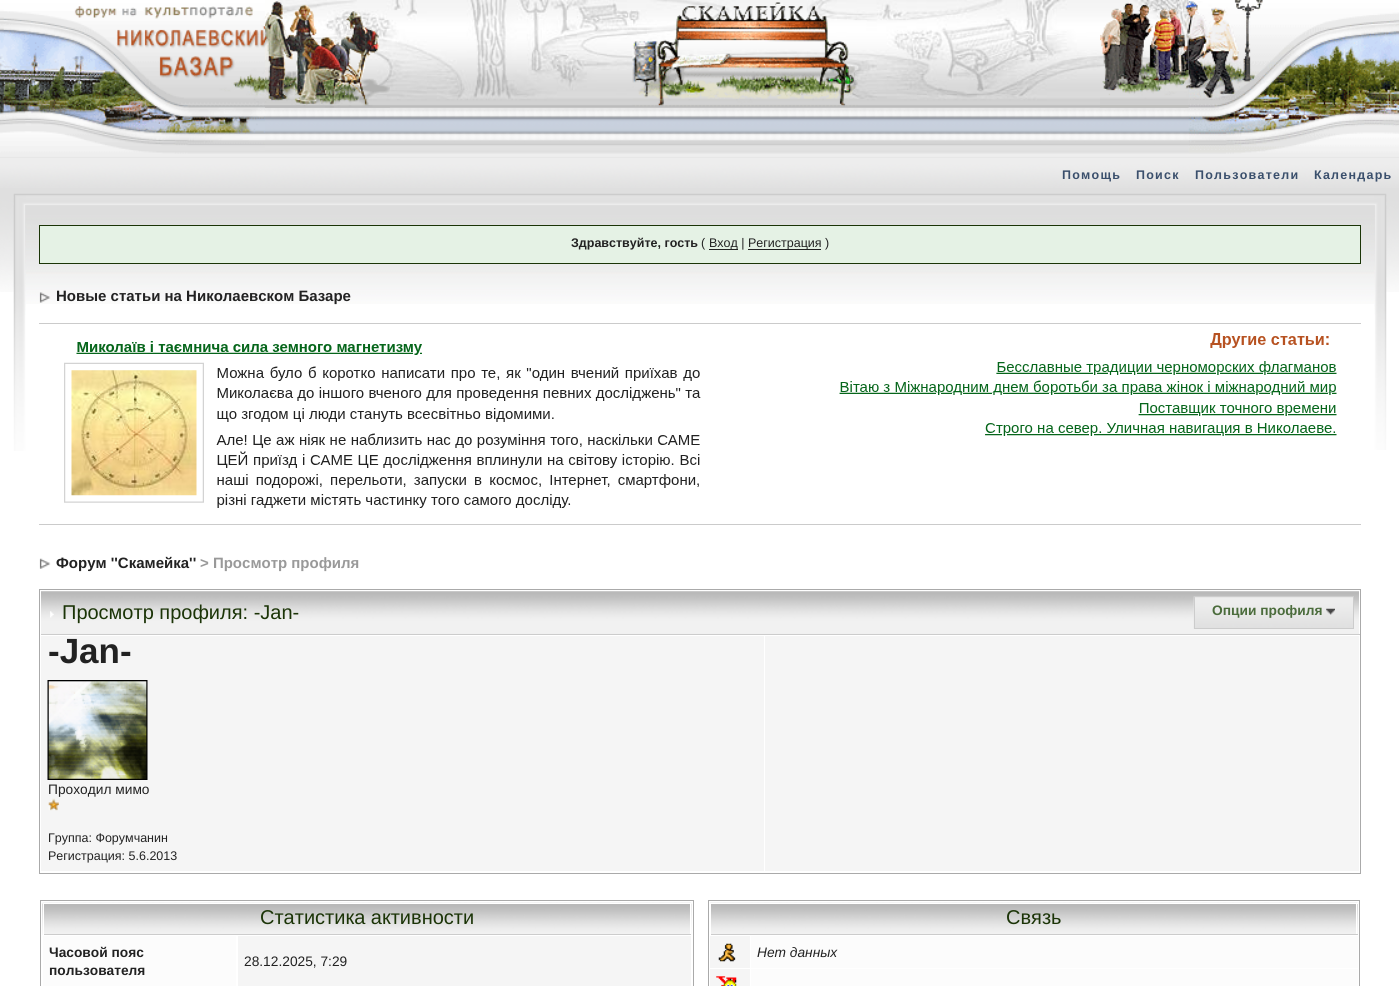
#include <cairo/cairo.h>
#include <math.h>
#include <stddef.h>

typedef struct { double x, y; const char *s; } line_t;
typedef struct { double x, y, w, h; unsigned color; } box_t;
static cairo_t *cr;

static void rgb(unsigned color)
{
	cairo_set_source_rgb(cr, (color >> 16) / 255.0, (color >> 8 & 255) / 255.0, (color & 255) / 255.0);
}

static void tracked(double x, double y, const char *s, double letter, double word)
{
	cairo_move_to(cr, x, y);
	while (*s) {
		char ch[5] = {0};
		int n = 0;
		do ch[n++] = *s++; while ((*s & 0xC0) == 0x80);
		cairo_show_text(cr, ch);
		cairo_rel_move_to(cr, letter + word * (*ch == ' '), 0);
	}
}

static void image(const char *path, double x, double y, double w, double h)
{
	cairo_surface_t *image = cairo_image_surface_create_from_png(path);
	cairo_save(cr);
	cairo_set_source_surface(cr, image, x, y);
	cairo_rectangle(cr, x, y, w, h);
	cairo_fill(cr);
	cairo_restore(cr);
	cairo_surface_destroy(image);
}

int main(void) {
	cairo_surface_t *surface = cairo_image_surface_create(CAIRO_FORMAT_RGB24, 1399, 986);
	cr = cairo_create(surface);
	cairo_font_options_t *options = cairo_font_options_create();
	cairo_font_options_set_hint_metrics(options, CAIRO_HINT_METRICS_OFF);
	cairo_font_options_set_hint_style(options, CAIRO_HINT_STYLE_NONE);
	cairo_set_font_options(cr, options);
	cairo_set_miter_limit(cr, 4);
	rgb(0xffffff);
	cairo_paint(cr);
	image("img/1.png", 0, 188, 1399, 104);
	rgb(0xe1e1e1);
	cairo_rectangle(cr, 0, 157, 1399, 1);
	cairo_fill(cr);
	image("img/2.png", 0, 0, 1399, 158);
	image("img/3.png", 0, 0, 265, 154);
	image("img/4.png", 265, 0, 924, 108);
	image("img/5.png", 265, 0, 125, 108);
	image("img/6.png", 632, 2, 226, 105);
	image("img/7.png", 1100, 2, 89, 106);
	image("img/8.png", 1188, 0, 211, 154);
	image("img/9.png", 0, 158, 1399, 30);
	image("img/10.png", 13, 193, 1374, 111);
	image("img/11.png", 13, 195, 13, 256);
	image("img/12.png", 1374, 195, 13, 255);
	rgb(0xe5f2e5);
	cairo_rectangle(cr, 39.5, 225.5, 1321, 38);
	cairo_fill_preserve(cr);
	rgb(0x1b3407);
	cairo_set_line_width(cr, 1);
	cairo_stroke(cr);
	rgb(0x222222);
	cairo_rectangle(cr, 709, 249, 29, 1);
	cairo_fill(cr);
	cairo_rectangle(cr, 748, 249, 73, 1);
	cairo_fill(cr);
	image("img/13.png", 39, 292, 12, 11);
	rgb(0xcbcbcb);
	cairo_rectangle(cr, 39, 323, 1322, 1);
	cairo_fill(cr);
	image("img/14.png", 64, 333, 1273, 175);
	cairo_rectangle(cr, 39, 524, 1322, 1);
	cairo_fill(cr);
	image("img/15.png", 39, 558, 12, 11);
	cairo_rectangle(cr, 39.5, 589.5, 1321, 284);
	rgb(0xaaaaaa);
	cairo_stroke(cr);
	image("img/16.png", 41, 591, 1318, 43);
	rgb(0xcccccc);
	cairo_rectangle(cr, 40, 634, 1320, 1);
	cairo_fill(cr);
	rgb(0xffffff);
	cairo_rectangle(cr, 40, 634, 1, 1);
	cairo_fill(cr);
	image("img/17.png", 50, 611, 4, 7);
	image("img/18.png", 1193, 596, 160, 33);
	cairo_rectangle(cr, 1194.5, 596.5, 159, 32);
	rgb(0xcccccc);
	cairo_stroke(cr);
	image("img/19.png", 1326, 608, 9, 7);
	rgb(0xf5f5f5);
	cairo_rectangle(cr, 41, 636, 723, 235);
	cairo_fill(cr);
	image("img/20.png", 47, 680, 101, 100);
	image("img/21.png", 48, 798, 11, 13);
	cairo_rectangle(cr, 765, 636, 594, 235);
	cairo_fill(cr);
	cairo_rectangle(cr, 40.5, 900.5, 653, 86);
	rgb(0xaaaaaa);
	cairo_stroke(cr);
	image("img/22.png", 42, 902, 650, 33);
	{
		static const box_t items[] = {
			{43, 903, 648, 1, 0xffffff},
			{690, 903, 1, 32, 0xffffff},
			{43, 934, 648, 1, 0xcccccc},
			{43, 903, 1, 32, 0xffffff},
			{43, 936, 193, 50, 0xfcfcfc},
			{238, 936, 453, 50, 0xf5f5f5},
		};
		for (size_t i = 0; i < sizeof items / sizeof *items; i++) {
			rgb(items[i].color);
			cairo_rectangle(cr, items[i].x, items[i].y, items[i].w, items[i].h);
			cairo_fill(cr);
		}
	}
	cairo_rectangle(cr, 708.5, 900.5, 651, 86);
	rgb(0xaaaaaa);
	cairo_stroke(cr);
	image("img/23.png", 710, 902, 648, 32);
	{
		static const box_t items[] = {
			{710, 903, 648, 1, 0xffffff},
			{1356, 903, 1, 32, 0xffffff},
			{710, 934, 648, 1, 0xcccccc},
			{710, 903, 1, 32, 0xffffff},
			{710, 936, 40, 32, 0xf5f5f5},
		};
		for (size_t i = 0; i < sizeof items / sizeof *items; i++) {
			rgb(items[i].color);
			cairo_rectangle(cr, items[i].x, items[i].y, items[i].w, items[i].h);
			cairo_fill(cr);
		}
	}
	image("img/24.png", 718, 943, 18, 19);
	rgb(0xfcfcfc);
	cairo_rectangle(cr, 751, 936, 607, 32);
	cairo_fill(cr);
	rgb(0xf5f5f5);
	cairo_rectangle(cr, 710, 969, 40, 17);
	cairo_fill(cr);
	image("img/25.png", 716, 976, 21, 10);
	rgb(0xfcfcfc);
	cairo_rectangle(cr, 751, 969, 607, 17);
	cairo_fill(cr);
	cairo_select_font_face(cr, "Liberation Sans", CAIRO_FONT_SLANT_NORMAL, CAIRO_FONT_WEIGHT_BOLD);
	cairo_set_font_size(cr, 12.5);
	rgb(0x3a4f6c);
	{
		static const line_t items[] = {
			{1062, 179, "Помощь"},
			{1136, 179, "Поиск"},
			{1195, 179, "Пользователи"},
			{1314, 179, "Календарь"},
		};
		for (size_t i = 0; i < sizeof items / sizeof *items; i++) {
			tracked(items[i].x, items[i].y, items[i].s, 1.25, 0);
		}
	}
	rgb(0x222222);
	cairo_move_to(cr, 571, 247);
	cairo_show_text(cr, "Здравствуйте, гость");
	cairo_select_font_face(cr, "Liberation Sans", CAIRO_FONT_SLANT_NORMAL, CAIRO_FONT_WEIGHT_NORMAL);
	{
		static const line_t items[] = {
			{701, 247, "("},
			{709, 247, "Вход |"},
			{748, 247, "Регистрация )"},
		};
		for (size_t i = 0; i < sizeof items / sizeof *items; i++) {
			cairo_move_to(cr, items[i].x, items[i].y);
			cairo_show_text(cr, items[i].s);
		}
	}
	cairo_select_font_face(cr, "Liberation Sans", CAIRO_FONT_SLANT_NORMAL, CAIRO_FONT_WEIGHT_BOLD);
	cairo_set_font_size(cr, 15);
	cairo_move_to(cr, 56, 301);
	cairo_show_text(cr, "Новые статьи на Николаевском Базаре");
	cairo_move_to(cr, 56, 568);
	cairo_show_text(cr, "Форум ''Скамейка''");
	rgb(0x999999);
	cairo_move_to(cr, 200, 568);
	cairo_show_text(cr, "> Просмотр профиля");
	cairo_select_font_face(cr, "Liberation Sans", CAIRO_FONT_SLANT_NORMAL, CAIRO_FONT_WEIGHT_NORMAL);
	cairo_set_font_size(cr, 20);
	rgb(0x1b3407);
	cairo_move_to(cr, 62, 619);
	cairo_show_text(cr, "Просмотр профиля: -Jan-");
	cairo_select_font_face(cr, "Liberation Sans", CAIRO_FONT_SLANT_NORMAL, CAIRO_FONT_WEIGHT_BOLD);
	cairo_set_font_size(cr, 13.75);
	rgb(0x4b6c3c);
	cairo_move_to(cr, 1212, 615);
	cairo_show_text(cr, "Опции профиля");
	cairo_set_font_size(cr, 35);
	rgb(0x222222);
	cairo_move_to(cr, 48, 663);
	cairo_show_text(cr, "-Jan-");
	cairo_select_font_face(cr, "Liberation Sans", CAIRO_FONT_SLANT_NORMAL, CAIRO_FONT_WEIGHT_NORMAL);
	cairo_set_font_size(cr, 13.75);
	cairo_move_to(cr, 48, 794);
	cairo_show_text(cr, "Проходил мимо");
	cairo_set_font_size(cr, 12.5);
	cairo_move_to(cr, 48, 842);
	cairo_show_text(cr, "Группа: Форумчанин");
	cairo_move_to(cr, 48, 860);
	cairo_show_text(cr, "Регистрация: 5.6.2013");
	cairo_set_font_size(cr, 20);
	rgb(0x1b3407);
	cairo_move_to(cr, 260, 924);
	cairo_show_text(cr, "Статистика активности");
	cairo_select_font_face(cr, "Liberation Sans", CAIRO_FONT_SLANT_NORMAL, CAIRO_FONT_WEIGHT_BOLD);
	cairo_set_font_size(cr, 13.75);
	rgb(0x222222);
	cairo_move_to(cr, 49, 957);
	cairo_show_text(cr, "Часовой пояс");
	cairo_move_to(cr, 49, 975);
	cairo_show_text(cr, "пользователя");
	cairo_select_font_face(cr, "Liberation Sans", CAIRO_FONT_SLANT_NORMAL, CAIRO_FONT_WEIGHT_NORMAL);
	cairo_move_to(cr, 244, 966);
	cairo_show_text(cr, "28.12.2025, 7:29");
	cairo_set_font_size(cr, 20);
	rgb(0x1b3407);
	cairo_move_to(cr, 1006, 924);
	cairo_show_text(cr, "Связь");
	cairo_select_font_face(cr, "Liberation Sans", CAIRO_FONT_SLANT_ITALIC, CAIRO_FONT_WEIGHT_NORMAL);
	cairo_set_font_size(cr, 13.75);
	rgb(0x222222);
	cairo_move_to(cr, 757, 957);
	cairo_show_text(cr, "Нет данных");
	cairo_surface_write_to_png(surface, "page.png");
	cairo_font_options_destroy(options);
	cairo_destroy(cr);
	cairo_surface_destroy(surface);
	return 0;
}
